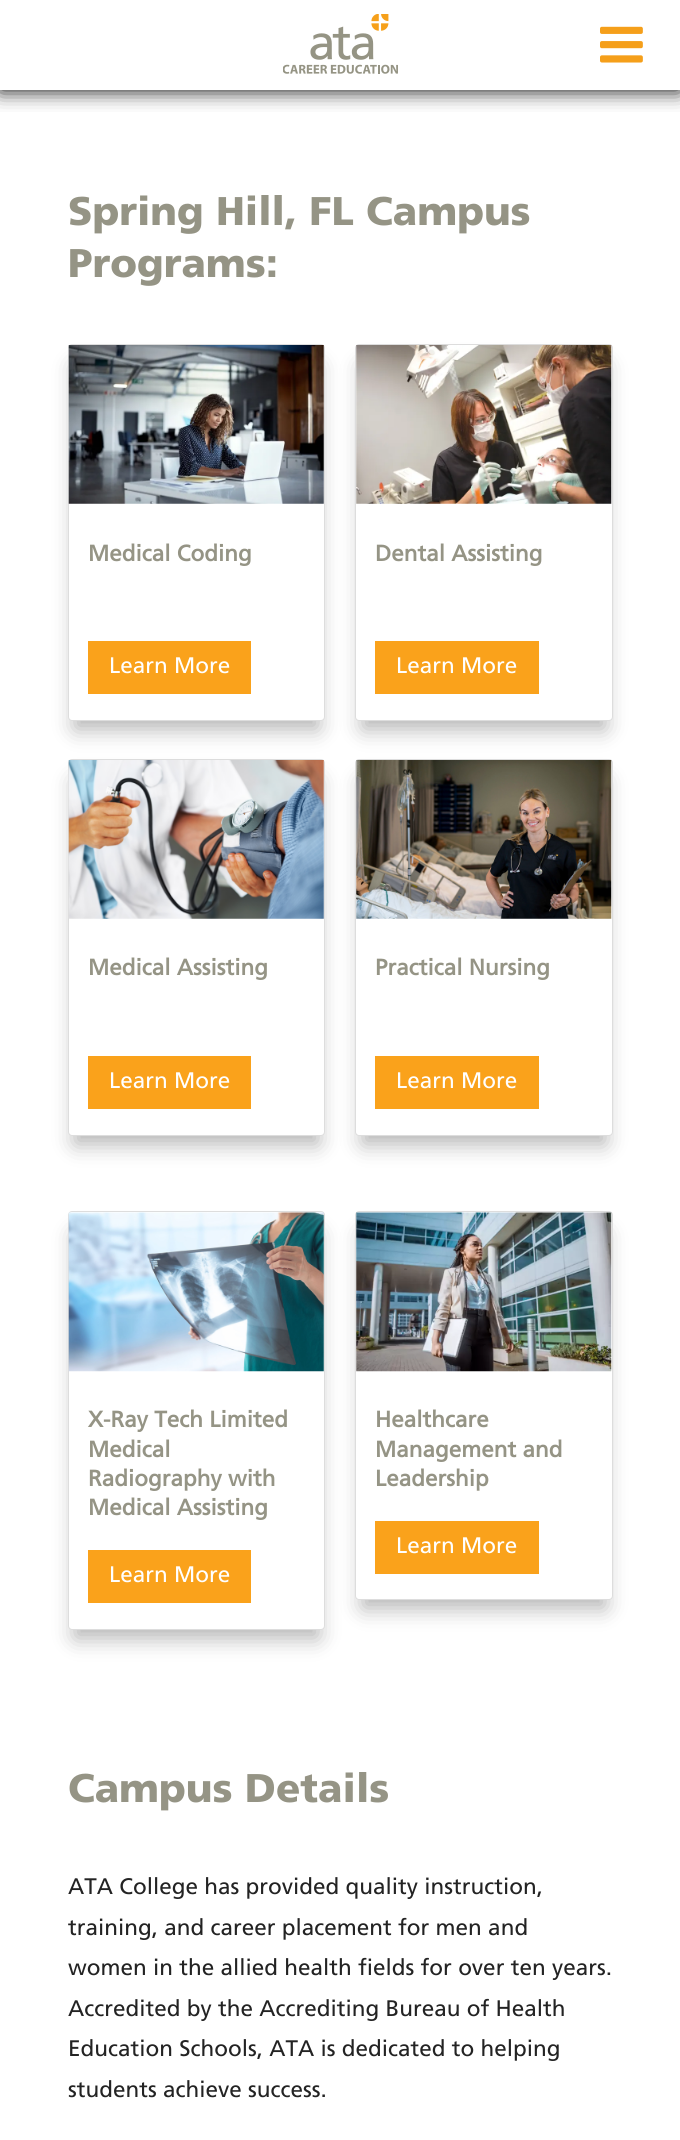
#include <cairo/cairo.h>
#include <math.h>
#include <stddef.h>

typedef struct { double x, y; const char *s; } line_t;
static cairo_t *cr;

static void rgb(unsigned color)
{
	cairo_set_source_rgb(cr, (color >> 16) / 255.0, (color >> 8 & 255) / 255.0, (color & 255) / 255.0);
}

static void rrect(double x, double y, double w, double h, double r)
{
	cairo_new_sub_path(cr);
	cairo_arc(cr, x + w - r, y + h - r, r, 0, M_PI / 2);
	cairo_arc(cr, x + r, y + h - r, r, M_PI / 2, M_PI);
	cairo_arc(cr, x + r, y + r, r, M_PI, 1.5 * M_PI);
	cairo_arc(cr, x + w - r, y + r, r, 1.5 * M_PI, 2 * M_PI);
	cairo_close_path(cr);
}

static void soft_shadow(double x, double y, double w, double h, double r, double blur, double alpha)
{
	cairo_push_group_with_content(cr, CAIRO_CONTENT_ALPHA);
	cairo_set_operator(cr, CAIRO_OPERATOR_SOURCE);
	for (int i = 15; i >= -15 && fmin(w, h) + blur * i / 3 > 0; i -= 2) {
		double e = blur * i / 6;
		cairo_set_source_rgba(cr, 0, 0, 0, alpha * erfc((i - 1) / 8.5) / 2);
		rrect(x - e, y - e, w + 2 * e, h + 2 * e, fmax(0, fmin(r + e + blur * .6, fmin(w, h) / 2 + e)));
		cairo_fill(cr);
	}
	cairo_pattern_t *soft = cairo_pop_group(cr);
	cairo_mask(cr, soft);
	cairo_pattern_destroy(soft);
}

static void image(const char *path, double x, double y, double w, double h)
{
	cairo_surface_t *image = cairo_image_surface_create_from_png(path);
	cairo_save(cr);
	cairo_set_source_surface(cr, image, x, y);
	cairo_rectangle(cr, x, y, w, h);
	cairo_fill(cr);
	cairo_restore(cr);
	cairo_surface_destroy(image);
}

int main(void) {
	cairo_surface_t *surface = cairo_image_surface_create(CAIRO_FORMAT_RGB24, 680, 2140);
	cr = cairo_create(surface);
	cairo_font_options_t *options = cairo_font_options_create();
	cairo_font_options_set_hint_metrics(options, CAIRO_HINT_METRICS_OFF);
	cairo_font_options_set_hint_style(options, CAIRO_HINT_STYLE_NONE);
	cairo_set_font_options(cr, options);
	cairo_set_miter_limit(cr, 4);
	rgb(0xffffff);
	cairo_paint(cr);
	cairo_save(cr);
	cairo_rectangle(cr, 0, 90, 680, 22);
	cairo_clip(cr);
	rgb(0x000000);
	soft_shadow(0, 0, 680, 90, 0, 10.5, 1);
	cairo_restore(cr);
	image("img/1.png", 283, 14, 115, 60);
	image("img/2.png", 600, 26, 43, 37);
	rgb(0x000000);
	soft_shadow(75, 366, 243, 363, 0, 11, 0.3);
	rgb(0xffffff);
	rrect(68.5, 344.5, 256, 376, 3.5);
	cairo_fill_preserve(cr);
	rgb(0xdddddd);
	cairo_set_line_width(cr, 1);
	cairo_stroke(cr);
	image("img/3.png", 68, 345, 256, 159);
	rgb(0xfaa21b);
	cairo_rectangle(cr, 88, 641, 163, 53);
	cairo_fill(cr);
	rgb(0x000000);
	soft_shadow(363, 366, 242, 363, 0, 11, 0.3);
	rgb(0xffffff);
	rrect(355.5, 344.5, 257, 376, 3.5);
	cairo_fill_preserve(cr);
	rgb(0xdddddd);
	cairo_stroke(cr);
	image("img/4.png", 356, 345, 256, 159);
	rgb(0xfaa21b);
	cairo_rectangle(cr, 375, 641, 164, 53);
	cairo_fill(cr);
	rgb(0x000000);
	soft_shadow(75, 781, 243, 363, 0, 11, 0.3);
	rgb(0xffffff);
	rrect(68.5, 759.5, 256, 376, 3.5);
	cairo_fill_preserve(cr);
	rgb(0xdddddd);
	cairo_stroke(cr);
	image("img/5.png", 68, 760, 256, 159);
	rgb(0xfaa21b);
	cairo_rectangle(cr, 88, 1056, 163, 53);
	cairo_fill(cr);
	rgb(0x000000);
	soft_shadow(363, 781, 242, 363, 0, 11, 0.3);
	rgb(0xffffff);
	rrect(355.5, 759.5, 257, 376, 3.5);
	cairo_fill_preserve(cr);
	rgb(0xdddddd);
	cairo_stroke(cr);
	image("img/6.png", 356, 760, 256, 159);
	rgb(0xfaa21b);
	cairo_rectangle(cr, 375, 1056, 164, 53);
	cairo_fill(cr);
	rgb(0x000000);
	soft_shadow(75, 1234, 243, 404, 0, 11, 0.3);
	rgb(0xffffff);
	rrect(68.5, 1211.5, 256, 418, 3.5);
	cairo_fill_preserve(cr);
	rgb(0xdddddd);
	cairo_stroke(cr);
	image("img/7.png", 68, 1212, 256, 160);
	rgb(0xfaa21b);
	cairo_rectangle(cr, 88, 1550, 163, 53);
	cairo_fill(cr);
	rgb(0x000000);
	soft_shadow(363, 1234, 242, 374, 0, 11, 0.3);
	rgb(0xffffff);
	rrect(355.5, 1211.5, 257, 388, 3.5);
	cairo_fill_preserve(cr);
	rgb(0xdddddd);
	cairo_stroke(cr);
	image("img/8.png", 356, 1212, 256, 160);
	rgb(0xfaa21b);
	cairo_rectangle(cr, 375, 1521, 164, 53);
	cairo_fill(cr);
	cairo_select_font_face(cr, "Frutiger Black", CAIRO_FONT_SLANT_NORMAL, CAIRO_FONT_WEIGHT_NORMAL);
	cairo_set_font_size(cr, 40);
	rgb(0x959485);
	cairo_move_to(cr, 68, 225);
	cairo_show_text(cr, "Spring Hill, FL Campus");
	cairo_move_to(cr, 68, 277);
	cairo_show_text(cr, "Programs:");
	cairo_select_font_face(cr, "Frutiger", CAIRO_FONT_SLANT_NORMAL, CAIRO_FONT_WEIGHT_BOLD);
	cairo_set_font_size(cr, 22.5);
	cairo_move_to(cr, 88, 561);
	cairo_show_text(cr, "Medical Coding");
	cairo_select_font_face(cr, "Frutiger", CAIRO_FONT_SLANT_NORMAL, CAIRO_FONT_WEIGHT_NORMAL);
	rgb(0xffffff);
	cairo_move_to(cr, 109, 673);
	cairo_show_text(cr, "Learn More");
	cairo_select_font_face(cr, "Frutiger", CAIRO_FONT_SLANT_NORMAL, CAIRO_FONT_WEIGHT_BOLD);
	rgb(0x959485);
	cairo_move_to(cr, 375, 561);
	cairo_show_text(cr, "Dental Assisting");
	cairo_select_font_face(cr, "Frutiger", CAIRO_FONT_SLANT_NORMAL, CAIRO_FONT_WEIGHT_NORMAL);
	rgb(0xffffff);
	cairo_move_to(cr, 396, 673);
	cairo_show_text(cr, "Learn More");
	cairo_select_font_face(cr, "Frutiger", CAIRO_FONT_SLANT_NORMAL, CAIRO_FONT_WEIGHT_BOLD);
	rgb(0x959485);
	cairo_move_to(cr, 88, 975);
	cairo_show_text(cr, "Medical Assisting");
	cairo_select_font_face(cr, "Frutiger", CAIRO_FONT_SLANT_NORMAL, CAIRO_FONT_WEIGHT_NORMAL);
	rgb(0xffffff);
	cairo_move_to(cr, 109, 1088);
	cairo_show_text(cr, "Learn More");
	cairo_select_font_face(cr, "Frutiger", CAIRO_FONT_SLANT_NORMAL, CAIRO_FONT_WEIGHT_BOLD);
	rgb(0x959485);
	cairo_move_to(cr, 375, 975);
	cairo_show_text(cr, "Practical Nursing");
	cairo_select_font_face(cr, "Frutiger", CAIRO_FONT_SLANT_NORMAL, CAIRO_FONT_WEIGHT_NORMAL);
	rgb(0xffffff);
	cairo_move_to(cr, 396, 1088);
	cairo_show_text(cr, "Learn More");
	cairo_select_font_face(cr, "Frutiger", CAIRO_FONT_SLANT_NORMAL, CAIRO_FONT_WEIGHT_BOLD);
	rgb(0x959485);
	{
		static const line_t items[] = {
			{88, 1427, "X-Ray Tech Limited"},
			{88, 1457, "Medical"},
			{88, 1486, "Radiography with"},
			{88, 1515, "Medical Assisting"},
		};
		for (size_t i = 0; i < sizeof items / sizeof *items; i++) {
			cairo_move_to(cr, items[i].x, items[i].y);
			cairo_show_text(cr, items[i].s);
		}
	}
	cairo_select_font_face(cr, "Frutiger", CAIRO_FONT_SLANT_NORMAL, CAIRO_FONT_WEIGHT_NORMAL);
	rgb(0xffffff);
	cairo_move_to(cr, 109, 1582);
	cairo_show_text(cr, "Learn More");
	cairo_select_font_face(cr, "Frutiger", CAIRO_FONT_SLANT_NORMAL, CAIRO_FONT_WEIGHT_BOLD);
	rgb(0x959485);
	{
		static const line_t items[] = {
			{375, 1427, "Healthcare"},
			{375, 1457, "Management and"},
			{375, 1486, "Leadership"},
		};
		for (size_t i = 0; i < sizeof items / sizeof *items; i++) {
			cairo_move_to(cr, items[i].x, items[i].y);
			cairo_show_text(cr, items[i].s);
		}
	}
	cairo_select_font_face(cr, "Frutiger", CAIRO_FONT_SLANT_NORMAL, CAIRO_FONT_WEIGHT_NORMAL);
	rgb(0xffffff);
	cairo_move_to(cr, 396, 1553);
	cairo_show_text(cr, "Learn More");
	cairo_select_font_face(cr, "Frutiger Black", CAIRO_FONT_SLANT_NORMAL, CAIRO_FONT_WEIGHT_NORMAL);
	cairo_set_font_size(cr, 40);
	rgb(0x959485);
	cairo_move_to(cr, 68, 1802);
	cairo_show_text(cr, "Campus Details");
	cairo_select_font_face(cr, "Frutiger", CAIRO_FONT_SLANT_NORMAL, CAIRO_FONT_WEIGHT_NORMAL);
	cairo_set_font_size(cr, 22.5);
	rgb(0x232323);
	{
		static const line_t items[] = {
			{68, 1894, "ATA College has provided quality instruction,"},
			{68, 1935, "training, and career placement for men and"},
			{68, 1975, "women in the allied health fields for over ten years."},
			{68, 2016, "Accredited by the Accrediting Bureau of Health"},
			{68, 2056, "Education Schools, ATA is dedicated to helping"},
			{68, 2097, "students achieve success."},
		};
		for (size_t i = 0; i < sizeof items / sizeof *items; i++) {
			cairo_move_to(cr, items[i].x, items[i].y);
			cairo_show_text(cr, items[i].s);
		}
	}
	cairo_surface_write_to_png(surface, "page.png");
	cairo_font_options_destroy(options);
	cairo_destroy(cr);
	cairo_surface_destroy(surface);
	return 0;
}
